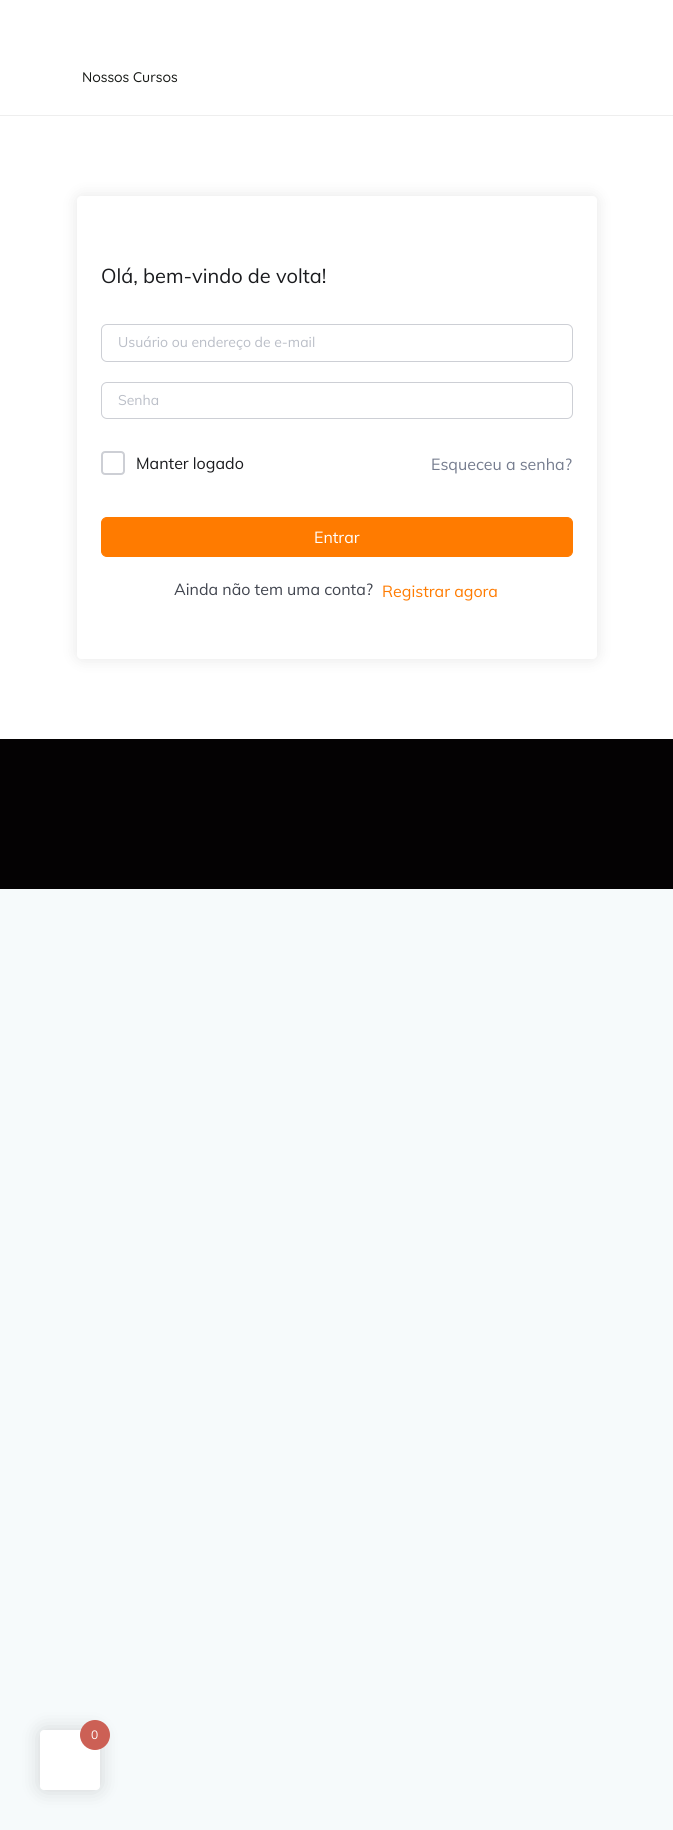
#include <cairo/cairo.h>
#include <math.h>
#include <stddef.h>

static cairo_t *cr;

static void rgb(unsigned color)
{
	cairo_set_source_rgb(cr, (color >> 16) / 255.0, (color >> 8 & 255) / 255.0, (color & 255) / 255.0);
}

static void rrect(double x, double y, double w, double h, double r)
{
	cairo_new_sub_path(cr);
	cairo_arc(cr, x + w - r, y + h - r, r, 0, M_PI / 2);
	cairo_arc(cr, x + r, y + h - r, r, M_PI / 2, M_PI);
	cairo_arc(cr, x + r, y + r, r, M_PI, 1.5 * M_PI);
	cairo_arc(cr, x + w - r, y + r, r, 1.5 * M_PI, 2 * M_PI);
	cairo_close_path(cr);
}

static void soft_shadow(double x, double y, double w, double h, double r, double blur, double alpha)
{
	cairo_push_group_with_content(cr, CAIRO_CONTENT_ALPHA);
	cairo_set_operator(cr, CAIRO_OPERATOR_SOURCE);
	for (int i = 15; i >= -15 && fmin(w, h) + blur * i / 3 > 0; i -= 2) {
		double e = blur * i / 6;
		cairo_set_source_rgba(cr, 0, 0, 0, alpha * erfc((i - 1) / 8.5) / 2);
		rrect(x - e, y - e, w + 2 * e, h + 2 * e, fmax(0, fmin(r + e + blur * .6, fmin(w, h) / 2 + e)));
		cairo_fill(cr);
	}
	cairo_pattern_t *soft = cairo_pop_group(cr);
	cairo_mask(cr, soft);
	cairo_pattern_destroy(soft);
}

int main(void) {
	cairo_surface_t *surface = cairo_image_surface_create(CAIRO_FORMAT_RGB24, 673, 1830);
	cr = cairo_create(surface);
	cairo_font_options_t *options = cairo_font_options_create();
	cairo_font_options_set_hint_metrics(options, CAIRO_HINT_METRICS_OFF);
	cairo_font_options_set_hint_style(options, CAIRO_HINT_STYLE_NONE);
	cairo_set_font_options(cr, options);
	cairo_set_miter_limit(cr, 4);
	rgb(0xf6fafb);
	cairo_paint(cr);
	rgb(0xffffff);
	cairo_rectangle(cr, 0, 0, 673, 739);
	cairo_fill(cr);
	rgb(0xeeeeee);
	cairo_rectangle(cr, 0, 115, 673, 1);
	cairo_fill(cr);
	cairo_save(cr);
	cairo_set_fill_rule(cr, CAIRO_FILL_RULE_EVEN_ODD);
	cairo_new_path(cr);
	cairo_move_to(cr, 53, 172);
	cairo_line_to(cr, 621, 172);
	cairo_line_to(cr, 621, 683);
	cairo_line_to(cr, 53, 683);
	cairo_close_path(cr);
	cairo_move_to(cr, 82, 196);
	cairo_line_to(cr, 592, 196);
	cairo_curve_to(cr, 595, 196, 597, 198, 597, 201);
	cairo_line_to(cr, 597, 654);
	cairo_curve_to(cr, 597, 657, 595, 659, 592, 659);
	cairo_line_to(cr, 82, 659);
	cairo_curve_to(cr, 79, 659, 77, 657, 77, 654);
	cairo_line_to(cr, 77, 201);
	cairo_curve_to(cr, 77, 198, 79, 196, 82, 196);
	cairo_close_path(cr);
	cairo_clip(cr);
	rgb(0x000000);
	soft_shadow(77, 196, 520, 463, 5, 7.5, 0.1);
	cairo_restore(cr);
	rrect(101.5, 324.5, 471, 37, 5.5);
	rgb(0xcdcfd5);
	cairo_set_line_width(cr, 1);
	cairo_stroke(cr);
	rrect(101.5, 382.5, 471, 36, 5.5);
	cairo_stroke(cr);
	rrect(102, 452, 22, 22, 3);
	cairo_set_line_width(cr, 2);
	cairo_stroke(cr);
	rgb(0xff7b00);
	rrect(101.5, 517.5, 471, 39, 5.5);
	cairo_fill_preserve(cr);
	cairo_set_line_width(cr, 1);
	cairo_stroke(cr);
	rgb(0x040203);
	cairo_rectangle(cr, 0, 739, 673, 150);
	cairo_fill(cr);
	rgb(0x000000);
	soft_shadow(40, 1730, 60, 60, 4, 10, 0.15);
	rgb(0xffffff);
	rrect(40, 1730, 60, 60, 4);
	cairo_fill(cr);
	rgb(0xcc6055);
	cairo_arc(cr, 95, 1735, 15, 0, 2 * M_PI);
	cairo_fill(cr);
	cairo_select_font_face(cr, "Quicksand Medium", CAIRO_FONT_SLANT_NORMAL, CAIRO_FONT_WEIGHT_NORMAL);
	cairo_set_font_size(cr, 14);
	rgb(0x171916);
	cairo_move_to(cr, 82, 82);
	cairo_show_text(cr, "Nossos Cursos");
	cairo_select_font_face(cr, "Muli", CAIRO_FONT_SLANT_NORMAL, CAIRO_FONT_WEIGHT_NORMAL);
	cairo_set_font_size(cr, 20);
	rgb(0x1a1b1e);
	cairo_move_to(cr, 101, 283);
	cairo_show_text(cr, "Olá, bem-vindo de volta!");
	cairo_set_font_size(cr, 14);
	rgb(0xbabec7);
	cairo_move_to(cr, 118, 347);
	cairo_show_text(cr, "Usuário ou endereço de e-mail");
	cairo_move_to(cr, 118, 405);
	cairo_show_text(cr, "Senha");
	cairo_set_font_size(cr, 16);
	rgb(0x1a1b1e);
	cairo_move_to(cr, 136, 469);
	cairo_show_text(cr, "Manter logado");
	rgb(0x757c8e);
	cairo_move_to(cr, 431, 470);
	cairo_show_text(cr, "Esqueceu a senha?");
	rgb(0xffffff);
	cairo_move_to(cr, 314, 543);
	cairo_show_text(cr, "Entrar");
	rgb(0x41454f);
	cairo_move_to(cr, 174, 595);
	cairo_show_text(cr, "Ainda não tem uma conta?");
	rgb(0xff7b00);
	cairo_move_to(cr, 382, 597);
	cairo_show_text(cr, "Registrar agora");
	cairo_set_font_size(cr, 12);
	rgb(0xffffff);
	cairo_move_to(cr, 91, 1739);
	cairo_show_text(cr, "0");
	cairo_surface_write_to_png(surface, "page.png");
	cairo_font_options_destroy(options);
	cairo_destroy(cr);
	cairo_surface_destroy(surface);
	return 0;
}
